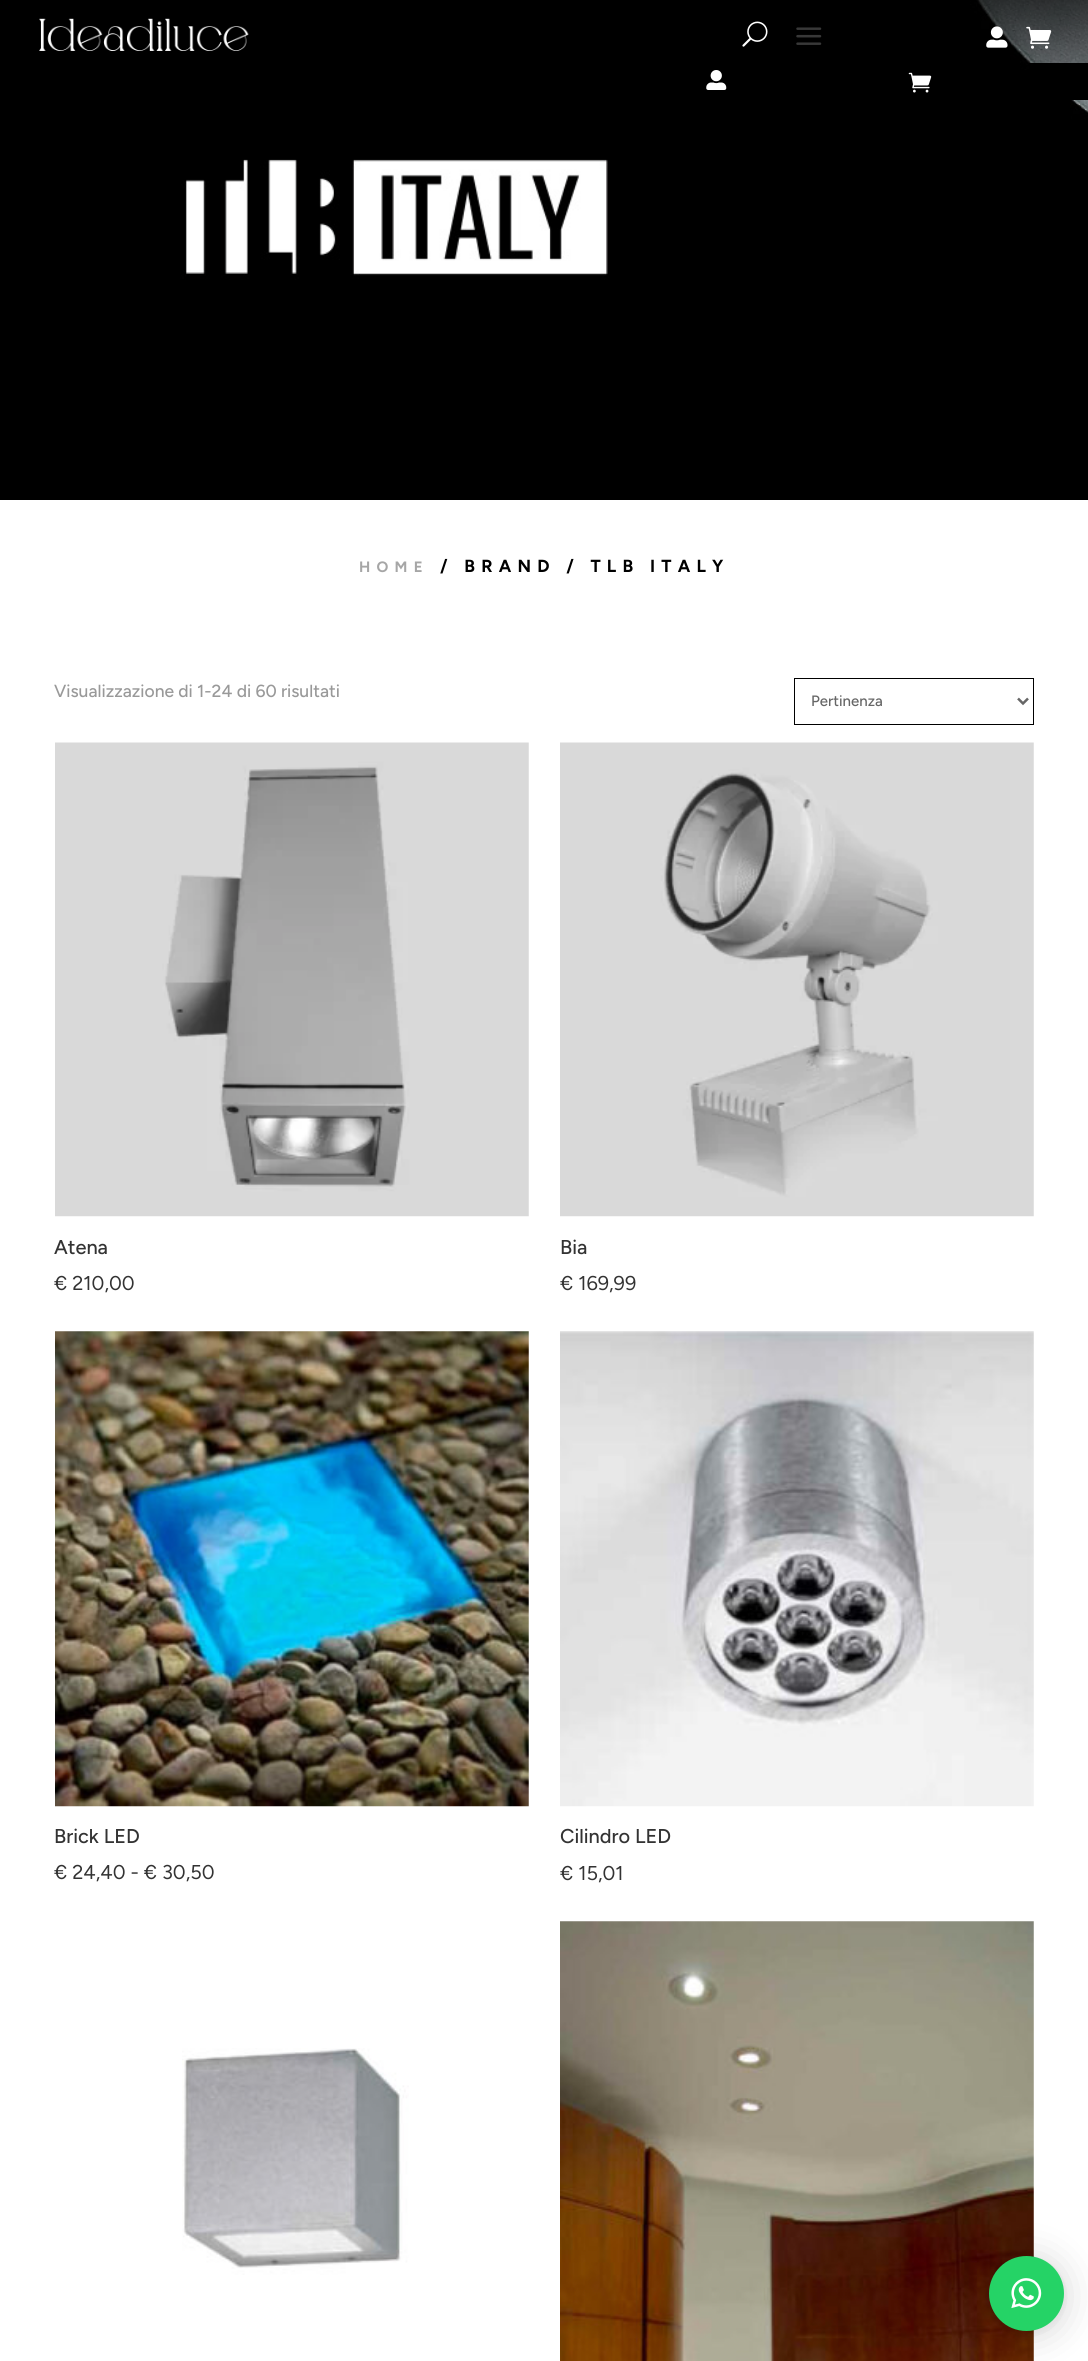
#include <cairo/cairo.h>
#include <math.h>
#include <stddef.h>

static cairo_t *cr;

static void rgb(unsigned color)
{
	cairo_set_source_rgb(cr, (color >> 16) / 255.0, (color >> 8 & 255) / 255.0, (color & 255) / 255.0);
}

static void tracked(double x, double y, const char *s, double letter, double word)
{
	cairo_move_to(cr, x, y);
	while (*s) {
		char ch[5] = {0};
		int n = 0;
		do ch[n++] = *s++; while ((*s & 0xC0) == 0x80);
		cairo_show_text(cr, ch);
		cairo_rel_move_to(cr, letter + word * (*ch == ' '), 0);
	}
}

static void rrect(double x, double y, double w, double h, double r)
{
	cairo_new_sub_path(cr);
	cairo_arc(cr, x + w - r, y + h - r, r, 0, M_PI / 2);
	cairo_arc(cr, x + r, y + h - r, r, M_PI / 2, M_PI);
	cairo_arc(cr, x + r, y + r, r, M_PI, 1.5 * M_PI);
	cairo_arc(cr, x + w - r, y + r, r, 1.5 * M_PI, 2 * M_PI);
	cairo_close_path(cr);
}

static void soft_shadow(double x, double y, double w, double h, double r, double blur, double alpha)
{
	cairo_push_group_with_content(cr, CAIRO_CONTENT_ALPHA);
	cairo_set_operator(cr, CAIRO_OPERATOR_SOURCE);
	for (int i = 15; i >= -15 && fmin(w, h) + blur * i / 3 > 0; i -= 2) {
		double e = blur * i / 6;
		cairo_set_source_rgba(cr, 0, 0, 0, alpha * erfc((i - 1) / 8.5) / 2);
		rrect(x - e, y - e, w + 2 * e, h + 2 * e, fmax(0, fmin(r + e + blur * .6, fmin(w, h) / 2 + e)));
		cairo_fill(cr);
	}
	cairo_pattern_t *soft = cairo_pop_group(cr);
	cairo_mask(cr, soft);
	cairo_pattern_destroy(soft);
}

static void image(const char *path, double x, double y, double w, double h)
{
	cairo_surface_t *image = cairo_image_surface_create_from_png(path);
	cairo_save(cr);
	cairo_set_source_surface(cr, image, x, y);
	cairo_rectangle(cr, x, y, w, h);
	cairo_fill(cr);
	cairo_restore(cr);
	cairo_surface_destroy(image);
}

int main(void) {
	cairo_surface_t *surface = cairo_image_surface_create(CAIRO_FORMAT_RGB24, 1088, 2361);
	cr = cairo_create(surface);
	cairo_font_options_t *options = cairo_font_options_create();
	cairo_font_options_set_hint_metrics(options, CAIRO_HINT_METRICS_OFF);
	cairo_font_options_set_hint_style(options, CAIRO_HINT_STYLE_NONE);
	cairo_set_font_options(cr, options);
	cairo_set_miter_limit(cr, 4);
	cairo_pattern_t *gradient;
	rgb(0xffffff);
	cairo_paint(cr);
	image("img/8.png", 0, 0, 1088, 500);
	cairo_set_source_rgba(cr, 0, 0, 0, 0.1);
	cairo_rectangle(cr, 978, 0, 110, 63);
	cairo_fill(cr);
	gradient = cairo_pattern_create_linear(544, 0, 544, 63);
	cairo_pattern_add_color_stop_rgba(gradient, 0, 0, 0, 0, 0.6);
	cairo_pattern_add_color_stop_rgba(gradient, 1, 0, 0, 0, 0.2);
	cairo_set_source(cr, gradient);
	cairo_pattern_destroy(gradient);
	cairo_rectangle(cr, 977, 0, 111, 63);
	cairo_fill(cr);
	image("img/1.png", 39, 18, 210, 33);
	image("img/2.png", 742, 21, 26, 26);
	image("img/3.png", 796, 27, 26, 18);
	image("img/4.png", 986, 26, 22, 22);
	image("img/5.png", 1026, 26, 26, 23);
	rgb(0x000000);
	cairo_rectangle(cr, 1029, 63, 59, 37);
	cairo_fill(cr);
	image("img/6.png", 706, 70, 21, 20);
	image("img/7.png", 908, 72, 24, 21);
	cairo_rectangle(cr, 794.5, 678.5, 239, 46);
	cairo_set_line_width(cr, 1);
	cairo_stroke(cr);
	cairo_new_path(cr);
	cairo_move_to(cr, 1018, 698.5);
	cairo_line_to(cr, 1023, 703.5);
	cairo_line_to(cr, 1028, 698.5);
	rgb(0x666666);
	cairo_set_line_width(cr, 2.5);
	cairo_stroke(cr);
	image("img/9.png", 55, 742, 474, 475);
	image("img/10.png", 560, 742, 474, 475);
	image("img/11.png", 55, 1331, 474, 476);
	image("img/12.png", 560, 1331, 474, 476);
	image("img/13.png", 182, 2048, 227, 227);
	image("img/14.png", 560, 1921, 474, 440);
	rgb(0x000000);
	soft_shadow(989, 2259, 75, 75, 37.5, 20, 0.16);
	soft_shadow(989, 2258, 75, 75, 37.5, 4, 0.06);
	rgb(0x25d366);
	cairo_arc(cr, 1026.5, 2293.5, 37.5, 0, 2 * M_PI);
	cairo_fill(cr);
	image("img/15.png", 1011, 2278, 31, 31);
	cairo_select_font_face(cr, "Figtree Light", CAIRO_FONT_SLANT_NORMAL, CAIRO_FONT_WEIGHT_NORMAL);
	cairo_set_font_size(cr, 15);
	rgb(0xa6a6a6);
	tracked(359, 572, "HOME", 6.25, 0);
	cairo_set_font_size(cr, 17.5);
	rgb(0x000000);
	tracked(440, 572, "/ BRAND / TLB ITALY", 6.25, 0);
	cairo_select_font_face(cr, "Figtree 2 Light", CAIRO_FONT_SLANT_NORMAL, CAIRO_FONT_WEIGHT_NORMAL);
	rgb(0x999999);
	cairo_move_to(cr, 54, 697);
	cairo_show_text(cr, "Visualizzazione di 1-24 di 60 risultati");
	cairo_set_font_size(cr, 15);
	rgb(0x666666);
	cairo_move_to(cr, 811, 706);
	cairo_show_text(cr, "Pertinenza");
	cairo_set_font_size(cr, 20);
	rgb(0x333333);
	cairo_move_to(cr, 54, 1254);
	cairo_show_text(cr, "Atena");
	cairo_select_font_face(cr, "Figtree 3 Light", CAIRO_FONT_SLANT_NORMAL, CAIRO_FONT_WEIGHT_NORMAL);
	cairo_move_to(cr, 54, 1290);
	cairo_show_text(cr, "€ 210,00");
	cairo_select_font_face(cr, "Figtree 2 Light", CAIRO_FONT_SLANT_NORMAL, CAIRO_FONT_WEIGHT_NORMAL);
	cairo_move_to(cr, 560, 1254);
	cairo_show_text(cr, "Bia");
	cairo_select_font_face(cr, "Figtree 3 Light", CAIRO_FONT_SLANT_NORMAL, CAIRO_FONT_WEIGHT_NORMAL);
	cairo_move_to(cr, 560, 1290);
	cairo_show_text(cr, "€ 169,99");
	cairo_select_font_face(cr, "Figtree 2 Light", CAIRO_FONT_SLANT_NORMAL, CAIRO_FONT_WEIGHT_NORMAL);
	cairo_move_to(cr, 54, 1843);
	cairo_show_text(cr, "Brick LED");
	cairo_select_font_face(cr, "Figtree 3 Light", CAIRO_FONT_SLANT_NORMAL, CAIRO_FONT_WEIGHT_NORMAL);
	cairo_move_to(cr, 54, 1879);
	cairo_show_text(cr, "€ 24,40 - € 30,50");
	cairo_select_font_face(cr, "Figtree 2 Light", CAIRO_FONT_SLANT_NORMAL, CAIRO_FONT_WEIGHT_NORMAL);
	cairo_move_to(cr, 560, 1843);
	cairo_show_text(cr, "Cilindro LED");
	cairo_select_font_face(cr, "Figtree 3 Light", CAIRO_FONT_SLANT_NORMAL, CAIRO_FONT_WEIGHT_NORMAL);
	cairo_move_to(cr, 560, 1880);
	cairo_show_text(cr, "€ 15,01");
	cairo_surface_write_to_png(surface, "page.png");
	cairo_font_options_destroy(options);
	cairo_destroy(cr);
	cairo_surface_destroy(surface);
	return 0;
}
